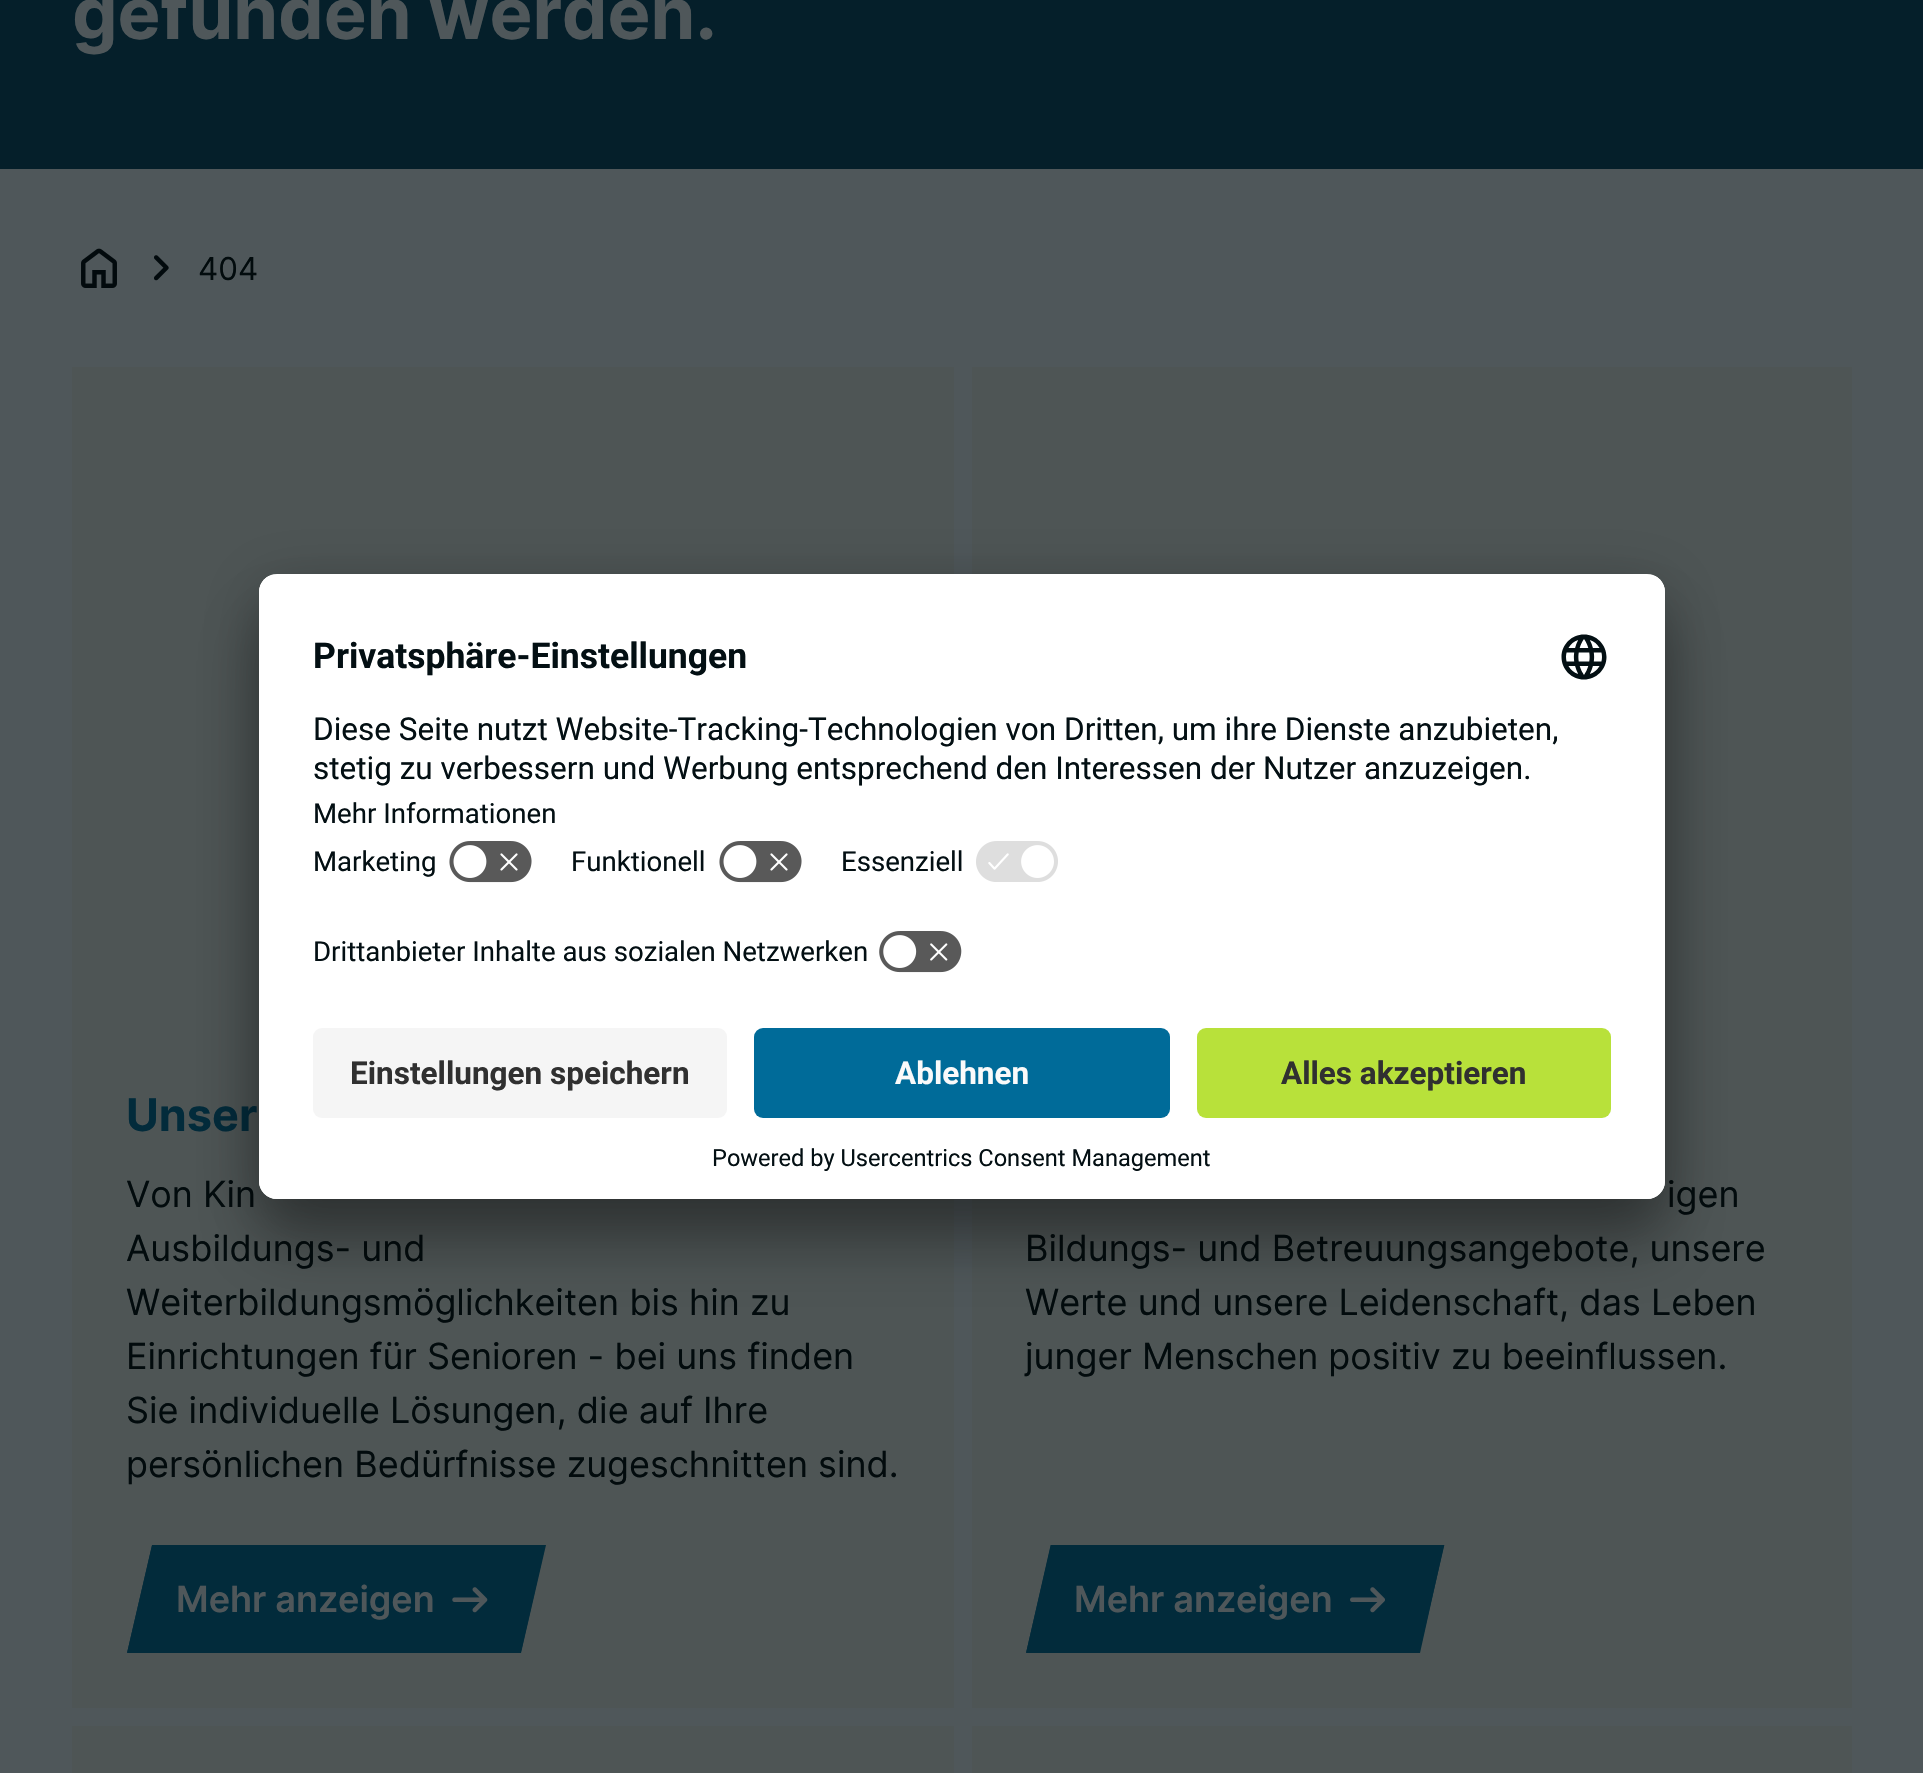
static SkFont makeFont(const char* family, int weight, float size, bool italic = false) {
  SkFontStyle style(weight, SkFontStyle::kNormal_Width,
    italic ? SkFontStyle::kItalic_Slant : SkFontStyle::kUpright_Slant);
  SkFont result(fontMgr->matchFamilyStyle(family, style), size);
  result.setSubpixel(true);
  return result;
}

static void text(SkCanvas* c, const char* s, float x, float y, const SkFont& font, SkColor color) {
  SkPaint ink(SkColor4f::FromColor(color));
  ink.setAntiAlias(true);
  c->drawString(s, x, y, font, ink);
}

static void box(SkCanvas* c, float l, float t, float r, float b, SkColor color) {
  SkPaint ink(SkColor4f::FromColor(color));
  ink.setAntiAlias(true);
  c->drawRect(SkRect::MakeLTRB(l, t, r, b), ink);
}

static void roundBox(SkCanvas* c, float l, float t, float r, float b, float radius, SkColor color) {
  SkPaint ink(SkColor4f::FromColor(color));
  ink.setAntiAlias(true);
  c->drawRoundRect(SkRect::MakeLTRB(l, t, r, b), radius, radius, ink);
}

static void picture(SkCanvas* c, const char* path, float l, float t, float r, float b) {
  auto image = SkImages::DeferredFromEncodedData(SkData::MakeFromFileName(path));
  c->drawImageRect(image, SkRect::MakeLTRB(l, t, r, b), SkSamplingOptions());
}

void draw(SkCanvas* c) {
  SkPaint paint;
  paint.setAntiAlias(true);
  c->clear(0xff4f575a);
  box(c, 0, 0, 1923, 169, 0xff051f2a);
  SkFont face1 = makeFont("Inter", 700, 72);
  text(c, "gefunden werden.", 72, 39, face1, 0xff4f575a);
  picture(c, "img_01.png", 81, 248, 117, 288);
  picture(c, "img_02.png", 154, 255, 169, 281);
  SkFont face2 = makeFont("Inter", 400, 31.5f);
  text(c, "404", 198, 280, face2, 0xff020b0d);
  box(c, 72, 367, 954, 1708, 0xff4e5555);
  SkFont face3 = makeFont("Inter", 700, 45);
  text(c, "Unser", 126, 1131, face3, 0xff022b3b);
  SkFont face4 = makeFont("Inter", 400, 36);
  text(c, "Von Kin", 126, 1207, face4, 0xff020b0d);
  text(c, "Ausbildungs- und", 126, 1261, face4, 0xff020b0d);
  text(c, "Weiterbildungsmöglichkeiten bis hin zu", 126, 1315, face4, 0xff020b0d);
  text(c, "Einrichtungen für Senioren - bei uns finden", 126, 1369, face4, 0xff020b0d);
  text(c, "Sie individuelle Lösungen, die auf Ihre", 126, 1423, face4, 0xff020b0d);
  text(c, "persönlichen Bedürfnisse zugeschnitten sind.", 126, 1477, face4, 0xff020b0d);
  paint.setColor(0xff022b3b);
  c->drawPath(SkPathBuilder().moveTo(152, 1545).lineTo(546, 1545).lineTo(521, 1653).lineTo(127, 1653).close().detach(), paint);
  paint.setStyle(SkPaint::kStroke_Style);
  paint.setStrokeWidth(2.2f);
  c->drawPath(SkPathBuilder().moveTo(153, 1546).lineTo(544, 1546).lineTo(520, 1651.5f).lineTo(128.5f, 1651.5f).close().detach(), paint);
  SkFont face5 = makeFont("Inter", 600, 36);
  text(c, "Mehr anzeigen", 176, 1612, face5, 0xff4f575a);
  picture(c, "img_03.png", 452, 1587, 488, 1613);
  box(c, 972, 367, 1852, 1708, 0xff4e5555);
  text(c, "igen", 1667, 1207, face4, 0xff020b0d);
  text(c, "Bildungs- und Betreuungsangebote, unsere", 1025, 1261, face4, 0xff020b0d);
  text(c, "Werte und unsere Leidenschaft, das Leben", 1025, 1315, face4, 0xff020b0d);
  text(c, "junger Menschen positiv zu beeinflussen.", 1025, 1369, face4, 0xff020b0d);
  paint.setStyle(SkPaint::kFill_Style);
  c->drawPath(SkPathBuilder().moveTo(1051, 1545).lineTo(1444, 1545).lineTo(1420, 1653).lineTo(1026, 1653).close().detach(), paint);
  paint.setStyle(SkPaint::kStroke_Style);
  c->drawPath(SkPathBuilder().moveTo(1051.5f, 1546).lineTo(1443, 1546).lineTo(1418.5f, 1651.5f).lineTo(1027.5f, 1651.5f).close().detach(), paint);
  text(c, "Mehr anzeigen", 1074, 1612, face5, 0xff4f575a);
  picture(c, "img_04.png", 1350, 1587, 1385, 1613);
  box(c, 72, 1726, 954, 1773, 0xff4e5555);
  box(c, 972, 1726, 1852, 1773, 0xff4e5555);
  paint.setStyle(SkPaint::kFill_Style);
  paint.setColor(0x4d000000);
  paint.setMaskFilter(SkMaskFilter::MakeBlur(kNormal_SkBlurStyle, 31.5f));
  c->drawRoundRect(SkRect::MakeLTRB(259, 619, 1665, 1244), 18, 18, paint);
  paint.setMaskFilter(nullptr);
  paint.setColor(0x38000000);
  paint.setMaskFilter(SkMaskFilter::MakeBlur(kNormal_SkBlurStyle, 29));
  c->drawRoundRect(SkRect::MakeLTRB(259, 585, 1665, 1211), 18, 18, paint);
  paint.setMaskFilter(nullptr);
  roundBox(c, 259, 574, 1665, 1199, 18, 0xffffffff);
  c->save();
  c->clipPath(SkPathBuilder().moveTo(277, 574).lineTo(1647, 574).cubicTo(1657, 574, 1665, 582, 1665, 592).lineTo(1665, 1181).cubicTo(1665, 1191, 1657, 1199, 1647, 1199).lineTo(277, 1199).cubicTo(267, 1199, 259, 1191, 259, 1181).lineTo(259, 592).cubicTo(259, 582, 267, 574, 277, 574).close().detach(), true);
  c->clipPath(SkPathBuilder().moveTo(277, 574).lineTo(1647, 574).cubicTo(1657, 574, 1665, 582, 1665, 592).lineTo(1665, 1010).lineTo(259, 1010).lineTo(259, 592).cubicTo(259, 582, 267, 574, 277, 574).close().detach(), true);
  box(c, 259, 576, 1665, 1010, 0xffffffff);
  box(c, 259, 576, 1665, 830, 0xffffffff);
  c->restore();
  SkFont face6 = makeFont("Roboto", 700, 35.5f);
  text(c, "Privatsphäre-Einstellungen", 313, 668, face6, 0xff030f13);
  picture(c, "img_05.png", 1561, 634, 1607, 680);
  SkFont face7 = makeFont("Roboto", 400, 31.5f);
  text(c, "Diese Seite nutzt Website-Tracking-Technologien von Dritten, um ihre Dienste anzubieten,", 313, 740, face7, 0xff030f13);
  text(c, "stetig zu verbessern und Werbung entsprechend den Interessen der Nutzer anzuzeigen.", 313, 779, face7, 0xff030f13);
  SkFont face8 = makeFont("Roboto", 400, 27.6f);
  text(c, "Mehr Informationen", 313, 823, face8, 0xff030f13);
  text(c, "Marketing", 313, 871, face8, 0xff030f13);
  picture(c, "img_06.png", 449, 841, 532, 883);
  text(c, "Funktionell", 571, 871, face8, 0xff030f13);
  picture(c, "img_06.png", 719, 841, 802, 883);
  text(c, "Essenziell", 841, 871, face8, 0xff030f13);
  picture(c, "img_07.png", 976, 841, 1058, 882);
  text(c, "Drittanbieter Inhalte aus sozialen Netzwerken", 313, 961, face8, 0xff030f13);
  picture(c, "img_08.png", 879, 931, 962, 973);
  paint.setColor(0xffffffff);
  c->drawPath(SkPathBuilder().moveTo(259, 1010).lineTo(1665, 1010).lineTo(1665, 1181).cubicTo(1665, 1191, 1657, 1199, 1647, 1199).lineTo(277, 1199).cubicTo(267, 1199, 259, 1191, 259, 1181).close().detach(), paint);
  roundBox(c, 313, 1028, 727, 1118, 9, 0xfff5f5f5);
  SkFont face9 = makeFont("Roboto", 700, 31.5f);
  text(c, "Einstellungen speichern", 350, 1084, face9, 0xff303030);
  roundBox(c, 754, 1028, 1170, 1118, 9, 0xff006b99);
  text(c, "Ablehnen", 895, 1084, face9, 0xfffafafa);
  roundBox(c, 1197, 1028, 1611, 1118, 9, 0xffb8e13a);
  text(c, "Alles akzeptieren", 1281, 1084, face9, 0xff303030);
  SkFont face10 = makeFont("Roboto", 400, 23.6f);
  text(c, "Powered by Usercentrics Consent Management", 712, 1166, face10, 0xff030f13);
}
